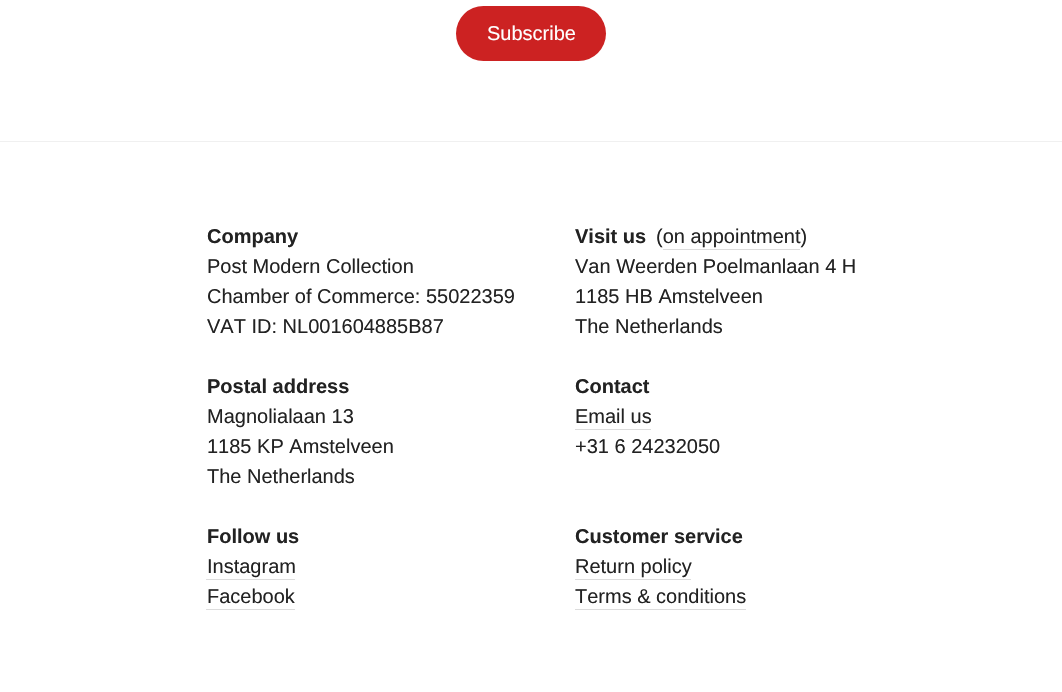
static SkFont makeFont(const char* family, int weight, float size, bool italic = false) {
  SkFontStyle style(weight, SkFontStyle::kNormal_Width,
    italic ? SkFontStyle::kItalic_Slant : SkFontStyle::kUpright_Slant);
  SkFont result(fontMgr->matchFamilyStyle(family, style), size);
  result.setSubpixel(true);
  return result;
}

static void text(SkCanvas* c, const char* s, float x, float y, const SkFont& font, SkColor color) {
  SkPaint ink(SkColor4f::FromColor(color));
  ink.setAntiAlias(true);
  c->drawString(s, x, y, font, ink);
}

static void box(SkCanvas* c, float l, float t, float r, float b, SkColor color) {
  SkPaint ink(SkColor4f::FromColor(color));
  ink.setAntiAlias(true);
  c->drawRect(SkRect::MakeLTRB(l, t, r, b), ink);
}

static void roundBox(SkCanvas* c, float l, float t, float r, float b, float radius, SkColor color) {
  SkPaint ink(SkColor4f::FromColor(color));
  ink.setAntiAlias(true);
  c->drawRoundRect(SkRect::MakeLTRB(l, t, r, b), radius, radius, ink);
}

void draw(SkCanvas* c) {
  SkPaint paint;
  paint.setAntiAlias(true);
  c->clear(0xffffffff);
  roundBox(c, 456, 6, 606, 61, 27.5f, 0xffcc2222);
  SkFont face1 = makeFont("Liberation Sans", 400, 20);
  text(c, "Subscribe", 487, 40, face1, 0xffffffff);
  box(c, 0, 141, 1062, 142, 0xfff0f0f0);
  SkFont face2 = makeFont("Liberation Sans", 700, 20);
  text(c, "Company", 207, 243, face2, 0xff222222);
  text(c, "Post Modern Collection", 207, 273, face1, 0xff222222);
  text(c, "Chamber of Commerce: 55022359", 207, 303, face1, 0xff222222);
  text(c, "VAT ID: NL001604885B87", 207, 333, face1, 0xff222222);
  text(c, "Visit us", 575, 243, face2, 0xff222222);
  text(c, "(on appointment)", 656, 243, face1, 0xff222222);
  box(c, 663, 249, 800, 250, 0xffdcdcdc);
  text(c, "Van Weerden Poelmanlaan 4 H", 575, 273, face1, 0xff222222);
  text(c, "1185 HB Amstelveen", 575, 303, face1, 0xff222222);
  text(c, "The Netherlands", 575, 333, face1, 0xff222222);
  text(c, "Postal address", 207, 393, face2, 0xff222222);
  text(c, "Magnolialaan 13", 207, 423, face1, 0xff222222);
  text(c, "1185 KP Amstelveen", 207, 453, face1, 0xff222222);
  text(c, "The Netherlands", 207, 483, face1, 0xff222222);
  text(c, "Contact", 575, 393, face2, 0xff222222);
  text(c, "Email us", 575, 423, face1, 0xff222222);
  box(c, 575, 429, 651, 430, 0xffdcdcdc);
  text(c, "+31 6 24232050", 575, 453, face1, 0xff222222);
  text(c, "Follow us", 207, 543, face2, 0xff222222);
  text(c, "Instagram", 207, 573, face1, 0xff222222);
  box(c, 206, 579, 295, 580, 0xffdcdcdc);
  text(c, "Facebook", 207, 603, face1, 0xff222222);
  box(c, 206, 609, 295, 610, 0xffdcdcdc);
  text(c, "Customer service", 575, 543, face2, 0xff222222);
  text(c, "Return policy", 575, 573, face1, 0xff222222);
  box(c, 575, 579, 691, 580, 0xffdcdcdc);
  text(c, "Terms & conditions", 575, 603, face1, 0xff222222);
  box(c, 575, 609, 746, 610, 0xffdcdcdc);
}
